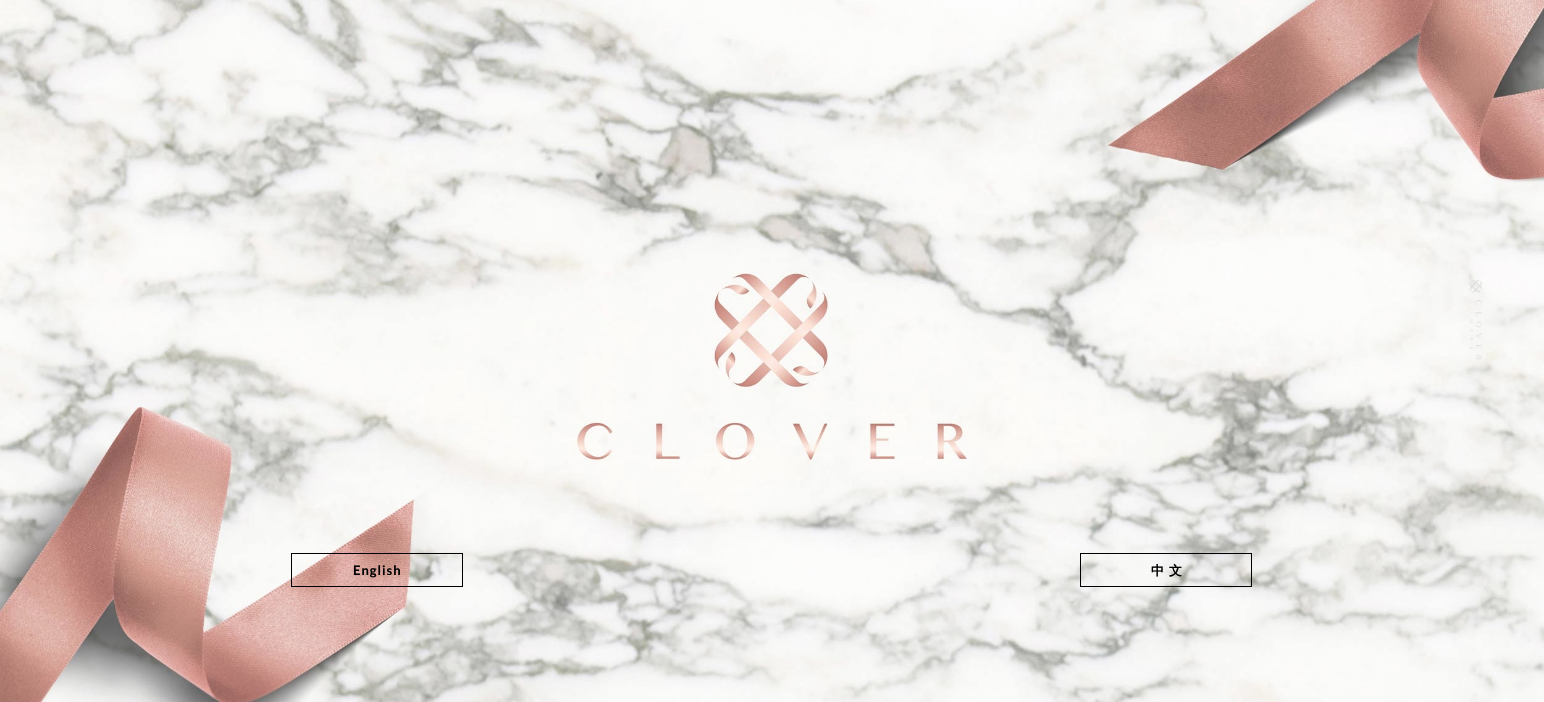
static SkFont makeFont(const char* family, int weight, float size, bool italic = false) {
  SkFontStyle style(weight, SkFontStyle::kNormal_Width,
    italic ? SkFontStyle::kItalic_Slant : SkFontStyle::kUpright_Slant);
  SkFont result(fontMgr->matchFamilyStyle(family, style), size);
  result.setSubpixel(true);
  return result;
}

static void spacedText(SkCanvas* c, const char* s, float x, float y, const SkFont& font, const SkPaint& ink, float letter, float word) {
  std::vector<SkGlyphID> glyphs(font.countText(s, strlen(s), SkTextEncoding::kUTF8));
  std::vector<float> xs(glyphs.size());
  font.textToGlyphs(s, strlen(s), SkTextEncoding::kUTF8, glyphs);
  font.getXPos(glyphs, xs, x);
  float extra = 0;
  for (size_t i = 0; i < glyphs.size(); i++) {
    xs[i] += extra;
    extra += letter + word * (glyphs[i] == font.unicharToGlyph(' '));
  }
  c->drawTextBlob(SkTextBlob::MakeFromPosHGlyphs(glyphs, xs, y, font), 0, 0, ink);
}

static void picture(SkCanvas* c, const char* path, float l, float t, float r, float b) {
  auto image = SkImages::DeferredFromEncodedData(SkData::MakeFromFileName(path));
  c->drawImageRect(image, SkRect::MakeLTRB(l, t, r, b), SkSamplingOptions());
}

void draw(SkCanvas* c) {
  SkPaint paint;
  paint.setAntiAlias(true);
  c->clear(0xffffffff);
  picture(c, "img_01.png", 0, 0, 1544, 702);
  paint.setStyle(SkPaint::kStroke_Style);
  paint.setStrokeWidth(1);
  paint.setColor(0xff000000);
  c->drawRect(SkRect::MakeLTRB(291.5f, 553.5f, 462.5f, 586.5f), paint);
  SkFont face1 = makeFont("Lato", 700, 13);
  paint.setStyle(SkPaint::kFill_Style);
  spacedText(c, "English", 353, 575, face1, paint, 1, 0);
  paint.setStyle(SkPaint::kStroke_Style);
  c->drawRect(SkRect::MakeLTRB(1080.5f, 553.5f, 1251.5f, 586.5f), paint);
  SkFont face2 = makeFont("WenQuanYi Zen Hei", 700, 13);
  paint.setStyle(SkPaint::kFill_Style);
  spacedText(c, "中 文", 1151, 575, face2, paint, 1, -1);
}
